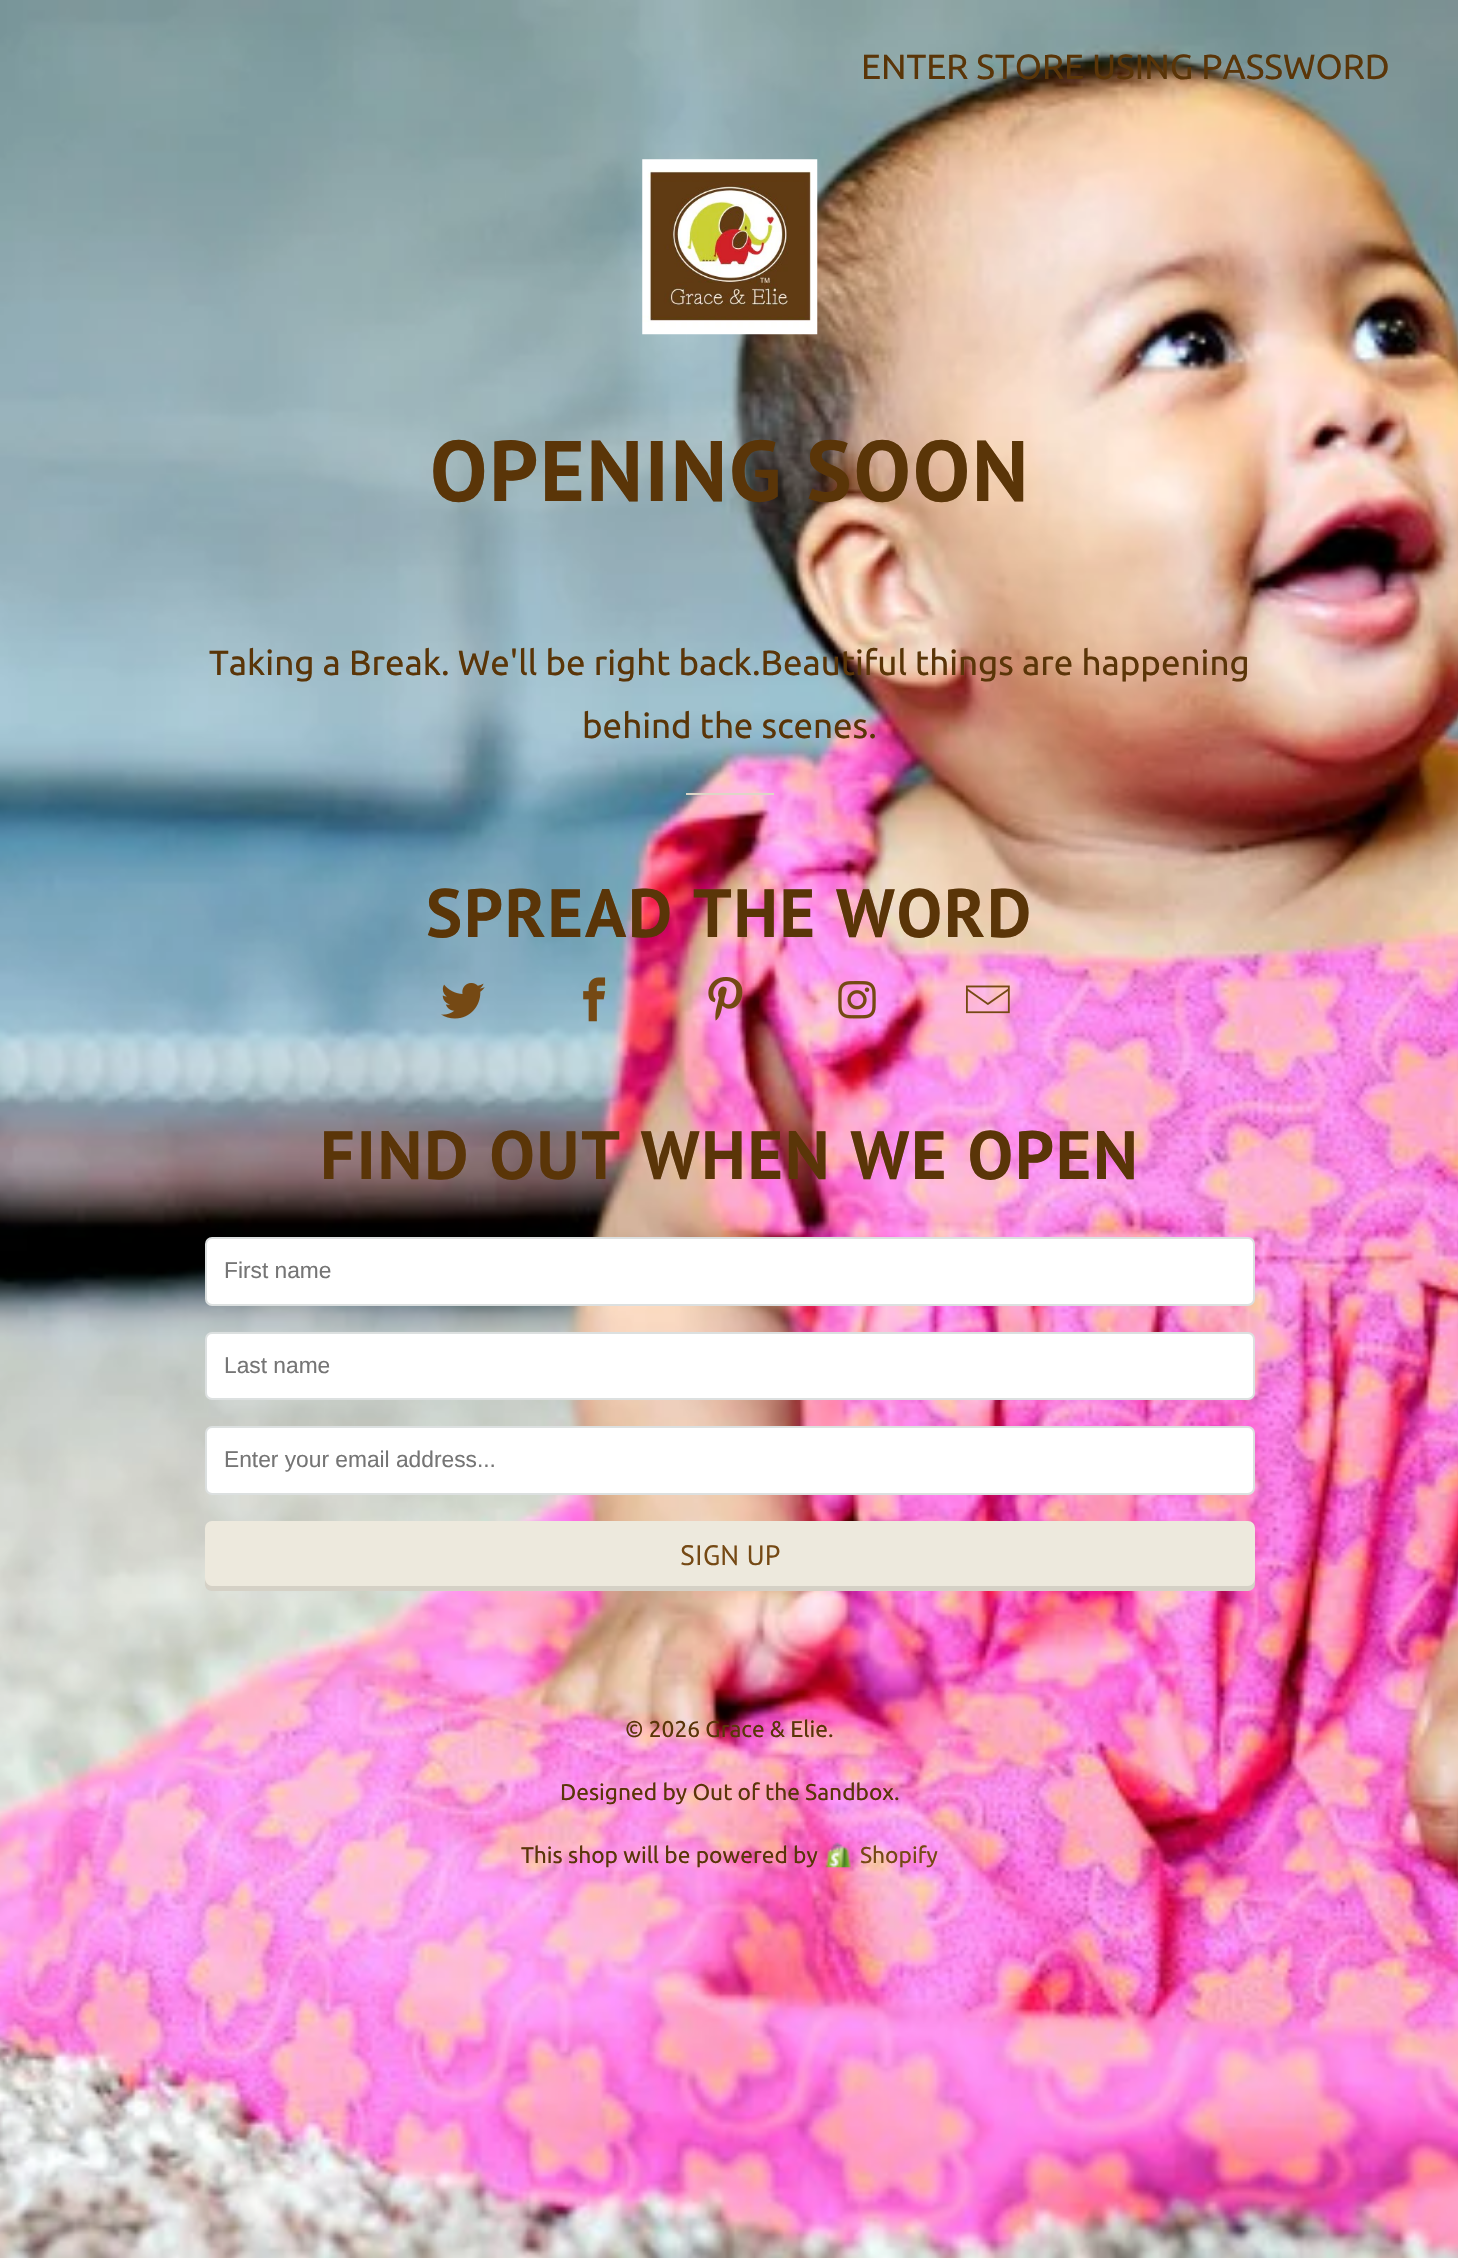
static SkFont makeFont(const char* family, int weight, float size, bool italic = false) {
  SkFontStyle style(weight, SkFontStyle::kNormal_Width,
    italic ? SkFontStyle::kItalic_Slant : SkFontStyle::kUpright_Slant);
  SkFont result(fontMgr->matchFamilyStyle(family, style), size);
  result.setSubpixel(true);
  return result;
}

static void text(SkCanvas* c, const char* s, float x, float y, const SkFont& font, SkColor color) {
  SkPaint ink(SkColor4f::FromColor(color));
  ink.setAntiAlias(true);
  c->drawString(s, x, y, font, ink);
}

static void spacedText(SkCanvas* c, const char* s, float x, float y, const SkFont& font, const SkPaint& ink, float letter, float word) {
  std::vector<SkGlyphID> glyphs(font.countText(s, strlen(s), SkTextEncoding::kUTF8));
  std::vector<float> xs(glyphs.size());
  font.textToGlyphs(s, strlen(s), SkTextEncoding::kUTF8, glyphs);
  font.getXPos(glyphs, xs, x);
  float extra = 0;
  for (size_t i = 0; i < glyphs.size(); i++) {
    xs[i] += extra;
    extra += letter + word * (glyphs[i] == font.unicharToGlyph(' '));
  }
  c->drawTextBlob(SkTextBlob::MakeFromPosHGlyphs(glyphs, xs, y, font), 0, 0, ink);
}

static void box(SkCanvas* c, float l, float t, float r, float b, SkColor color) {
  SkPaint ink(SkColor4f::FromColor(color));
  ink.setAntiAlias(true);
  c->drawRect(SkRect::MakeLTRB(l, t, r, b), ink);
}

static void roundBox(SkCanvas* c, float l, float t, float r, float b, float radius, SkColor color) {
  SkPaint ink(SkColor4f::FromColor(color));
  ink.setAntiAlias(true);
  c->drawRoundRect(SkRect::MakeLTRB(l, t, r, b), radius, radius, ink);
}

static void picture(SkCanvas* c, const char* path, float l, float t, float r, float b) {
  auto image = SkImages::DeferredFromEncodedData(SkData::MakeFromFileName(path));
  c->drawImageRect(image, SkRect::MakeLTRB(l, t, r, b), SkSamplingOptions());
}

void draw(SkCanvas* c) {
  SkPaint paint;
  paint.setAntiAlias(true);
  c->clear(0xffffffff);
  picture(c, "img_01.png", 0, 0, 1458, 2258);
  SkFont face1 = makeFont("Ubuntu", 400, 35);
  text(c, "ENTER STORE USING PASSWORD", 861, 79, face1, 0xff5a3508);
  picture(c, "img_02.png", 642, 159, 818, 335);
  SkFont face2 = makeFont("PT Sans", 700, 85.75f);
  paint.setColor(0xff5a3508);
  spacedText(c, "OPENING SOON", 430, 501, face2, paint, 1.75f, 0);
  text(c, "Taking a Break. We'll be right back.Beautiful things are happening", 209, 675, face1, 0xff5a3508);
  text(c, "behind the scenes.", 582, 738, face1, 0xff5a3508);
  box(c, 686, 793, 774, 795, 0xffded6c7);
  SkFont face3 = makeFont("PT Sans", 700, 68.25f);
  spacedText(c, "SPREAD THE WORD", 426, 937, face3, paint, 1.75f, 0);
  picture(c, "img_03.png", 441, 983, 485, 1019);
  picture(c, "img_04.png", 583, 977, 606, 1022);
  picture(c, "img_05.png", 708, 977, 743, 1021);
  picture(c, "img_06.png", 838, 981, 876, 1019);
  picture(c, "img_07.png", 966, 985, 1010, 1014);
  spacedText(c, "FIND OUT WHEN WE OPEN", 320, 1179, face3, paint, 1.75f, 0);
  paint.setColor(0xffffffff);
  c->drawRoundRect(SkRect::MakeLTRB(206, 1238, 1254, 1305), 6, 6, paint);
  paint.setStyle(SkPaint::kStroke_Style);
  paint.setStrokeWidth(2);
  paint.setColor(0xffdce0e0);
  c->drawRoundRect(SkRect::MakeLTRB(206, 1238, 1254, 1305), 6, 6, paint);
  SkFont face4 = makeFont("Liberation Sans", 400, 22.75f);
  text(c, "First name", 224, 1278, face4, 0xff757575);
  paint.setStyle(SkPaint::kFill_Style);
  paint.setColor(0xffffffff);
  c->drawRoundRect(SkRect::MakeLTRB(206, 1333, 1254, 1399), 6, 6, paint);
  paint.setStyle(SkPaint::kStroke_Style);
  paint.setColor(0xffdce0e0);
  c->drawRoundRect(SkRect::MakeLTRB(206, 1333, 1254, 1399), 6, 6, paint);
  text(c, "Last name", 224, 1373, face4, 0xff757575);
  paint.setStyle(SkPaint::kFill_Style);
  paint.setColor(0xffffffff);
  c->drawRoundRect(SkRect::MakeLTRB(206, 1427, 1254, 1494), 6, 6, paint);
  paint.setStyle(SkPaint::kStroke_Style);
  paint.setColor(0xffdce0e0);
  c->drawRoundRect(SkRect::MakeLTRB(206, 1427, 1254, 1494), 6, 6, paint);
  text(c, "Enter your email address...", 224, 1467, face4, 0xff757575);
  roundBox(c, 205, 1521, 1255, 1591, 7, 0xffede9dd);
  paint.setStyle(SkPaint::kFill_Style);
  paint.setColor(0x1a000000);
  c->drawPath(SkPathBuilder().moveTo(205, 1578).lineTo(205, 1584).cubicTo(205, 1588, 208, 1591, 212, 1591).lineTo(1248, 1591).cubicTo(1252, 1591, 1255, 1588, 1255, 1584).lineTo(1255, 1578).cubicTo(1255, 1582, 1252, 1586, 1248, 1586).lineTo(212, 1586).cubicTo(208, 1586, 205, 1582, 205, 1578).close().detach(), paint);
  SkFont face5 = makeFont("PT Sans", 400, 28);
  text(c, "SIGN UP", 680, 1565, face5, 0xff754914);
  SkFont face6 = makeFont("Ubuntu", 400, 22.75f);
  text(c, "© 2026 Grace & Elie.", 625, 1737, face6, 0xff5a3508);
  text(c, "Designed by Out of the Sandbox.", 560, 1800, face6, 0xff5a3508);
  text(c, "This shop will be powered by", 521, 1863, face6, 0xff5a3508);
  picture(c, "img_08.png", 825, 1842, 851, 1868);
  text(c, "Shopify", 860, 1863, face6, 0xff754914);
}
